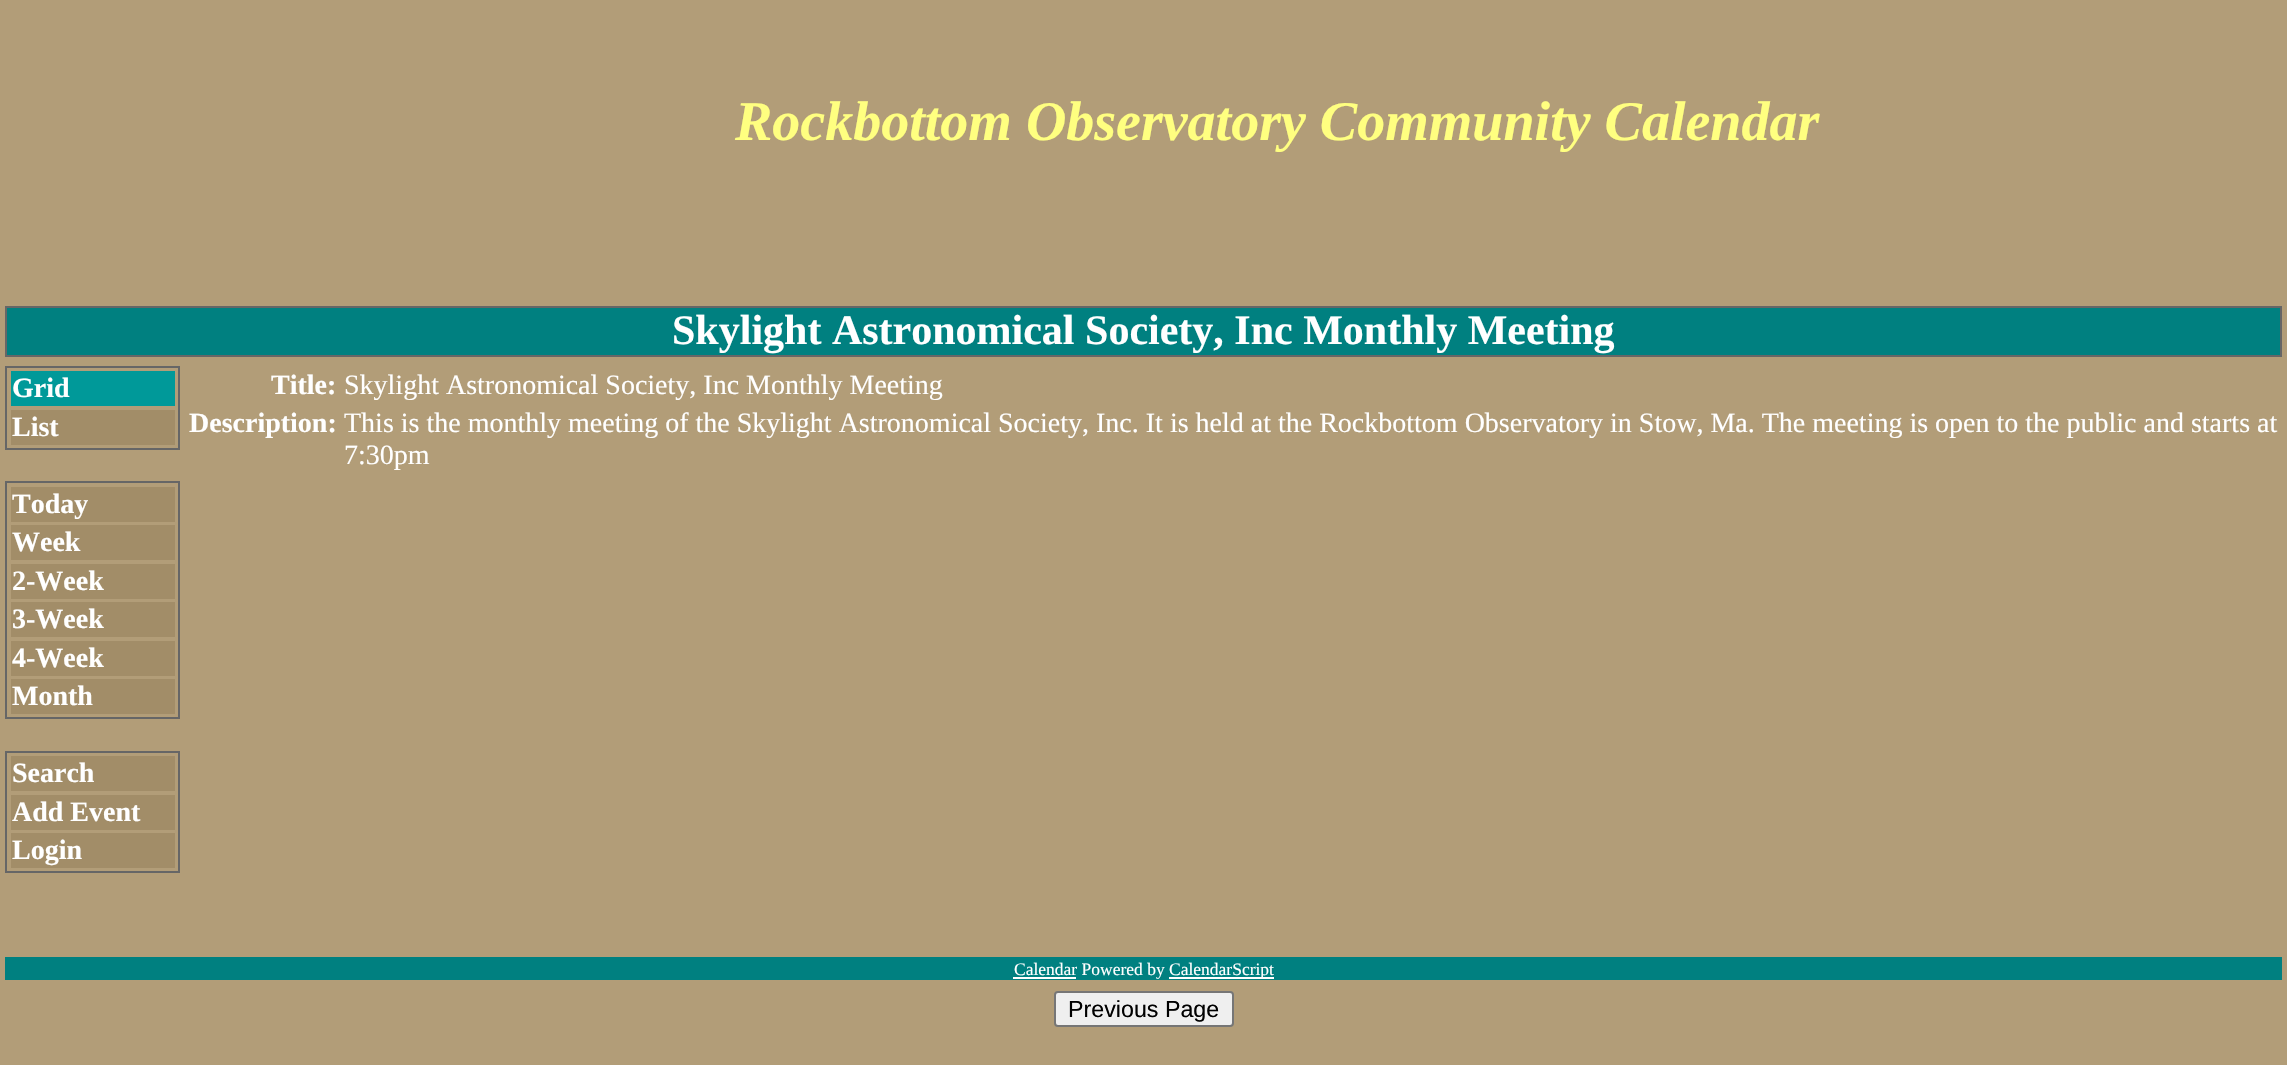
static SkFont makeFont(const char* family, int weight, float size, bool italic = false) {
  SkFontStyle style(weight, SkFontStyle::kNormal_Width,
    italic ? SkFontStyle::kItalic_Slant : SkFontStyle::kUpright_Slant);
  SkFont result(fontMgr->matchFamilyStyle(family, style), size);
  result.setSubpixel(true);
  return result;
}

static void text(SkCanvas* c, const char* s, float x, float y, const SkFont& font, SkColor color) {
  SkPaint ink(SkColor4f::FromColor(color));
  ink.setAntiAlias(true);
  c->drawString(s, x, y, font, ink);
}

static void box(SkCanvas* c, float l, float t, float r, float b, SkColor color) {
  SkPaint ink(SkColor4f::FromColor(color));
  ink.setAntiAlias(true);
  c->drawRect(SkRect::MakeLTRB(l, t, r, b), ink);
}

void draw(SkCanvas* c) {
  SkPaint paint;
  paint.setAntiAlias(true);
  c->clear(0xffb29d78);
  SkFont face1 = makeFont("Liberation Serif", 700, 56, true);
  text(c, "Rockbottom Observatory Community Calendar", 735, 140, face1, 0xffffff80);
  paint.setStyle(SkPaint::kStroke_Style);
  paint.setStrokeWidth(2);
  paint.setColor(0xff666666);
  c->drawRect(SkRect::MakeLTRB(6, 307, 2281, 356), paint);
  box(c, 7, 308, 2280, 355, 0xff008080);
  SkFont face2 = makeFont("Liberation Serif", 700, 42);
  text(c, "Skylight Astronomical Society, Inc Monthly Meeting", 672, 344, face2, 0xffffffff);
  c->drawRect(SkRect::MakeLTRB(6, 367, 179, 449), paint);
  box(c, 11, 371, 175, 406, 0xff009999);
  SkFont face3 = makeFont("Liberation Serif", 700, 28);
  text(c, "Grid", 12, 397, face3, 0xffffffff);
  box(c, 11, 410, 175, 445, 0xffa28d68);
  text(c, "List", 12, 436, face3, 0xffffffff);
  c->drawRect(SkRect::MakeLTRB(6, 482, 179, 718), paint);
  box(c, 11, 487, 175, 522, 0xffa28d68);
  text(c, "Today", 12, 513, face3, 0xffffffff);
  box(c, 11, 525, 175, 560, 0xffa28d68);
  text(c, "Week", 12, 551, face3, 0xffffffff);
  box(c, 11, 564, 175, 599, 0xffa28d68);
  text(c, "2-Week", 12, 590, face3, 0xffffffff);
  box(c, 11, 602, 175, 637, 0xffa28d68);
  text(c, "3-Week", 12, 628, face3, 0xffffffff);
  box(c, 11, 641, 175, 676, 0xffa28d68);
  text(c, "4-Week", 12, 667, face3, 0xffffffff);
  box(c, 11, 679, 175, 714, 0xffa28d68);
  text(c, "Month", 12, 705, face3, 0xffffffff);
  c->drawRect(SkRect::MakeLTRB(6, 752, 179, 872), paint);
  box(c, 11, 756, 175, 791, 0xffa28d68);
  text(c, "Search", 12, 782, face3, 0xffffffff);
  box(c, 11, 795, 175, 830, 0xffa28d68);
  text(c, "Add Event", 12, 821, face3, 0xffffffff);
  box(c, 11, 833, 175, 868, 0xffa28d68);
  text(c, "Login", 12, 859, face3, 0xffffffff);
  text(c, "Title:", 271, 394, face3, 0xffffffff);
  SkFont face4 = makeFont("Liberation Serif", 400, 28);
  text(c, "Skylight Astronomical Society, Inc Monthly Meeting", 344, 394, face4, 0xffffffff);
  text(c, "Description:", 189, 432, face3, 0xffffffff);
  text(c, "This is the monthly meeting of the Skylight Astronomical Society, Inc. It is held at the Rockbottom Observatory in Stow, Ma. The meeting is open to the public and starts at", 344, 432, face4, 0xffffffff);
  text(c, "7:30pm", 344, 464, face4, 0xffffffff);
  box(c, 5, 957, 2282, 980, 0xff008080);
  box(c, 1013, 977, 1076, 979, 0xffffffff);
  SkFont face5 = makeFont("Liberation Serif", 400, 17.5f);
  text(c, "Calendar Powered by", 1014, 975, face5, 0xffffffff);
  box(c, 1169, 977, 1274, 979, 0xffffffff);
  text(c, "CalendarScript", 1169, 975, face5, 0xffffffff);
  paint.setStyle(SkPaint::kFill_Style);
  paint.setColor(0xffefefef);
  c->drawRoundRect(SkRect::MakeLTRB(1055, 992, 1233, 1026), 3, 3, paint);
  paint.setStyle(SkPaint::kStroke_Style);
  paint.setColor(0xff767676);
  c->drawRoundRect(SkRect::MakeLTRB(1055, 992, 1233, 1026), 3, 3, paint);
  SkFont face6 = makeFont("Liberation Sans", 400, 23.25f);
  text(c, "Previous Page", 1068, 1017, face6, 0xff000000);
}
